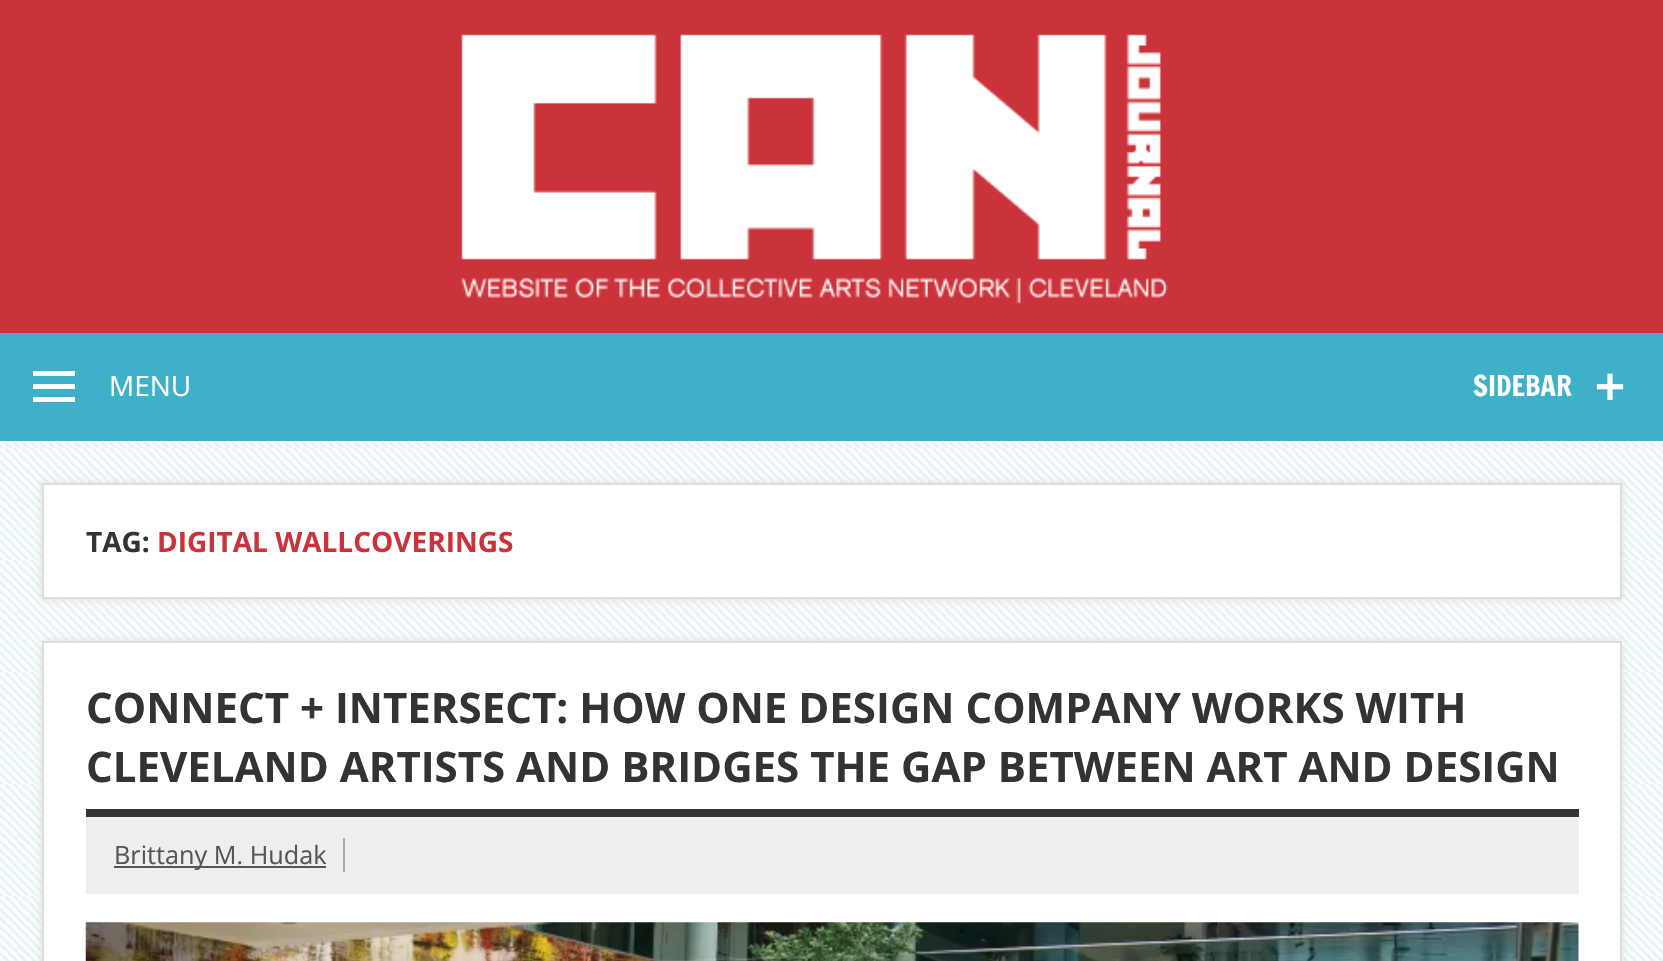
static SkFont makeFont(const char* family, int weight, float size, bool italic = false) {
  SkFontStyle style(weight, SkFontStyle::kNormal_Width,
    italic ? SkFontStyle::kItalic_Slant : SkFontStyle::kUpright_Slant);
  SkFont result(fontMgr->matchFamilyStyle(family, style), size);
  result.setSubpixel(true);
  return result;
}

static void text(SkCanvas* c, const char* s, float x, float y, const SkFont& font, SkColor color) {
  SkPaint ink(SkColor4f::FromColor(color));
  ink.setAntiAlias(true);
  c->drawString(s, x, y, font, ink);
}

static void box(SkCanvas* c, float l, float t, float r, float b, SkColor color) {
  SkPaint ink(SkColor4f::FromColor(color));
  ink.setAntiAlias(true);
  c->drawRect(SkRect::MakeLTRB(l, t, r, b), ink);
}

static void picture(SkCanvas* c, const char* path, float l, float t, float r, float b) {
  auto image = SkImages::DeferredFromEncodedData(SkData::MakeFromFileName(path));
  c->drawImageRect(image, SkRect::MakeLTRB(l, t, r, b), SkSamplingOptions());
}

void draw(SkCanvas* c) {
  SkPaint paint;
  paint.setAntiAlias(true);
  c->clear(0xffffffff);
  picture(c, "img_01.png", 0, 441, 1663, 961);
  box(c, 0, 0, 1663, 333, 0xffcb333b);
  picture(c, "img_02.png", 461, 34, 1168, 304);
  box(c, 0, 333, 1663, 441, 0xff3eb1c8);
  paint.setColor(0xffffffff);
  c->drawPath(SkPathBuilder().moveTo(33, 402).lineTo(33, 397).lineTo(75, 397).lineTo(75, 402).close().moveTo(33, 371).lineTo(75, 371).lineTo(75, 376).lineTo(33, 376).close().moveTo(33, 389).lineTo(33, 384).lineTo(75, 384).lineTo(75, 389).close().detach(), paint);
  SkFont face1 = makeFont("Open Sans", 400, 28);
  text(c, "MENU", 109, 396, face1, 0xffffffff);
  SkFont face2 = makeFont("Francois One", 400, 28);
  text(c, "SIDEBAR", 1473, 396, face2, 0xffffffff);
  picture(c, "img_03.png", 1596, 373, 1624, 400);
  paint.setColor(0xffdddddd);
  paint.setMaskFilter(SkMaskFilter::MakeBlur(kNormal_SkBlurStyle, 3.5f));
  c->drawRect(SkRect::MakeLTRB(42, 483, 1622, 599), paint);
  paint.setMaskFilter(nullptr);
  paint.setColor(0xffffffff);
  c->drawRect(SkRect::MakeLTRB(43, 484, 1621, 598), paint);
  paint.setStyle(SkPaint::kStroke_Style);
  paint.setStrokeWidth(2);
  paint.setColor(0xffdddddd);
  c->drawRect(SkRect::MakeLTRB(43, 484, 1621, 598), paint);
  SkFont face3 = makeFont("Open Sans", 700, 28);
  text(c, "TAG:", 86, 552, face3, 0xff333333);
  text(c, "DIGITAL WALLCOVERINGS", 157, 552, face3, 0xffcb333b);
  paint.setStyle(SkPaint::kFill_Style);
  paint.setMaskFilter(SkMaskFilter::MakeBlur(kNormal_SkBlurStyle, 3.5f));
  c->drawRect(SkRect::MakeLTRB(42, 641, 1622, 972), paint);
  paint.setMaskFilter(nullptr);
  paint.setColor(0xffffffff);
  c->drawRect(SkRect::MakeLTRB(43, 642, 1621, 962), paint);
  paint.setStyle(SkPaint::kStroke_Style);
  paint.setColor(0xffdddddd);
  c->drawRect(SkRect::MakeLTRB(43, 642, 1621, 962), paint);
  box(c, 86, 809, 1579, 817, 0xff333333);
  SkFont face4 = makeFont("Open Sans", 700, 42);
  text(c, "CONNECT + INTERSECT: HOW ONE DESIGN COMPANY WORKS WITH", 86, 723, face4, 0xff333333);
  text(c, "CLEVELAND ARTISTS AND BRIDGES THE GAP BETWEEN ART AND DESIGN", 86, 782, face4, 0xff333333);
  box(c, 86, 817, 1579, 894, 0xffeeeeee);
  box(c, 114, 866, 326, 868, 0xff555555);
  SkFont face5 = makeFont("Open Sans", 400, 25.25f);
  text(c, "Brittany M. Hudak", 114, 864, face5, 0xff555555);
  box(c, 343, 838, 345, 872, 0xffaaaaaa);
  picture(c, "img_04.png", 85, 922, 1579, 961);
}
